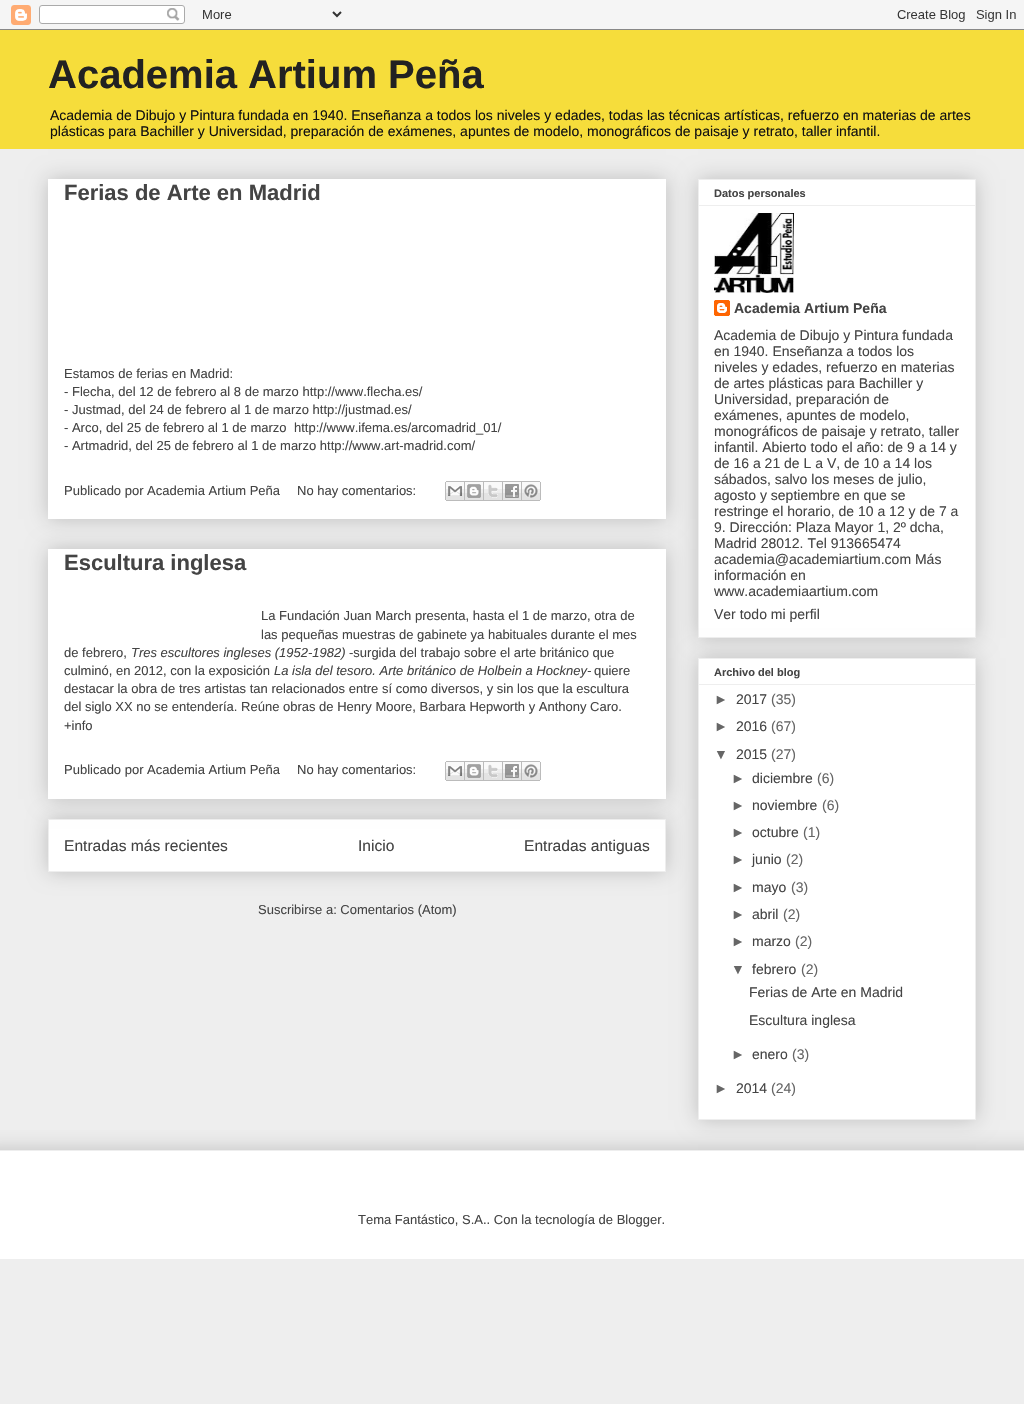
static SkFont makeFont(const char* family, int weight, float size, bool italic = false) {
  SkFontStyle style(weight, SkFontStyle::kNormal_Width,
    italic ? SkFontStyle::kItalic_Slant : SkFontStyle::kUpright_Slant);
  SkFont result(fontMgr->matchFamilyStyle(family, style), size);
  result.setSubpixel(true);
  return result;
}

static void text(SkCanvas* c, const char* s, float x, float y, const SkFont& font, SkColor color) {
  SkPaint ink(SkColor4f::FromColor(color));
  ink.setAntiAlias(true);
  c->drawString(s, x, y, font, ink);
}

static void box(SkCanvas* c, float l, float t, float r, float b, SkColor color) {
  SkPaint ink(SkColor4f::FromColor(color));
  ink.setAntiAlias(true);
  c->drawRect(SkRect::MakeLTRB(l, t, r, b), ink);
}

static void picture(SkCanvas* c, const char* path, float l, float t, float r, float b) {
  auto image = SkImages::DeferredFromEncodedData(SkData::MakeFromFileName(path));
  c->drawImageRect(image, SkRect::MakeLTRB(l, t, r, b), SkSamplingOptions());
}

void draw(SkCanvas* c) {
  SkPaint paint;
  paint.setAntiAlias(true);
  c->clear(0xffeeeeee);
  picture(c, "img_01.png", 0, 0, 1024, 30);
  box(c, 0, 30, 1024, 149, 0xfff6dd3b);
  SkFont face1 = makeFont("Liberation Sans", 700, 40);
  text(c, "Academia Artium Peña", 48, 88, face1, 0xff222222);
  SkFont face2 = makeFont("Liberation Sans", 400, 14);
  text(c, "Academia de Dibujo y Pintura fundada en 1940. Enseñanza a todos los niveles y edades, todas las técnicas artísticas, refuerzo en materias de artes", 50, 120, face2, 0xff111111);
  text(c, "plásticas para Bachiller y Universidad, preparación de exámenes, apuntes de modelo, monográficos de paisaje y retrato, taller infantil.", 50, 136, face2, 0xff111111);
  paint.setColor(0x33000000);
  paint.setMaskFilter(SkMaskFilter::MakeBlur(kNormal_SkBlurStyle, 10));
  c->drawRect(SkRect::MakeLTRB(48, 179, 666, 519), paint);
  paint.setMaskFilter(nullptr);
  box(c, 48, 179, 666, 519, 0xffffffff);
  SkFont face3 = makeFont("Liberation Sans", 700, 22);
  text(c, "Ferias de Arte en Madrid", 64, 200, face3, 0xff444444);
  SkFont face4 = makeFont("Liberation Sans", 400, 13);
  text(c, "Estamos de ferias en Madrid:", 64, 378, face4, 0xff444444);
  text(c, "- Flecha, del 12 de febrero al 8 de marzo http://www.flecha.es/", 64, 396, face4, 0xff444444);
  text(c, "- Justmad, del 24 de febrero al 1 de marzo http://justmad.es/", 64, 414, face4, 0xff444444);
  text(c, "- Arco, del 25 de febrero al 1 de marzo", 64, 432, face4, 0xff444444);
  text(c, "http://www.ifema.es/arcomadrid_01/", 294, 432, face4, 0xff444444);
  text(c, "- Artmadrid, del 25 de febrero al 1 de marzo http://www.art-madrid.com/", 64, 450, face4, 0xff444444);
  text(c, "Publicado por Academia Artium Peña", 64, 495, face4, 0xff444444);
  text(c, "No hay comentarios:", 297, 495, face4, 0xff444444);
  picture(c, "img_02.png", 445, 481, 465, 501);
  picture(c, "img_03.png", 465, 481, 484, 501);
  picture(c, "img_04.png", 484, 481, 503, 501);
  picture(c, "img_05.png", 503, 481, 522, 501);
  picture(c, "img_06.png", 522, 481, 541, 501);
  paint.setMaskFilter(SkMaskFilter::MakeBlur(kNormal_SkBlurStyle, 10));
  c->drawRect(SkRect::MakeLTRB(48, 819, 666, 872), paint);
  paint.setMaskFilter(nullptr);
  paint.setColor(0xffffffff);
  c->drawRect(SkRect::MakeLTRB(48.5f, 819.5f, 665.5f, 871.5f), paint);
  paint.setStyle(SkPaint::kStroke_Style);
  paint.setStrokeWidth(1);
  paint.setColor(0xffeeeeee);
  c->drawRect(SkRect::MakeLTRB(48.5f, 819.5f, 665.5f, 871.5f), paint);
  paint.setStyle(SkPaint::kFill_Style);
  paint.setColor(0x33000000);
  paint.setMaskFilter(SkMaskFilter::MakeBlur(kNormal_SkBlurStyle, 10));
  c->drawRect(SkRect::MakeLTRB(48, 549, 666, 799), paint);
  paint.setMaskFilter(nullptr);
  box(c, 48, 549, 666, 799, 0xffffffff);
  text(c, "Escultura inglesa", 64, 570, face3, 0xff444444);
  text(c, "La Fundación Juan March presenta, hasta el 1 de marzo, otra de", 261, 620, face4, 0xff444444);
  text(c, "las pequeñas muestras de gabinete ya habituales durante el mes", 261, 639, face4, 0xff444444);
  text(c, "de febrero,", 64, 657, face4, 0xff444444);
  SkFont face5 = makeFont("Liberation Sans", 400, 13, true);
  text(c, "Tres escultores ingleses (1952-1982)", 131, 657, face5, 0xff444444);
  text(c, "-surgida del trabajo sobre el arte británico que", 349, 657, face4, 0xff444444);
  text(c, "culminó, en 2012, con la exposición", 64, 675, face4, 0xff444444);
  text(c, "La isla del tesoro. Arte británico de Holbein a Hockney-", 274, 675, face5, 0xff444444);
  text(c, "quiere", 594, 675, face4, 0xff444444);
  text(c, "destacar la obra de tres artistas tan relacionados entre sí como diversos, y sin los que la escultura", 64, 693, face4, 0xff444444);
  text(c, "del siglo XX no se entendería. Reúne obras de Henry Moore, Barbara Hepworth y Anthony Caro.", 64, 711, face4, 0xff444444);
  text(c, "+info", 64, 730, face4, 0xff444444);
  text(c, "Publicado por Academia Artium Peña", 64, 774, face4, 0xff444444);
  text(c, "No hay comentarios:", 297, 774, face4, 0xff444444);
  picture(c, "img_02.png", 445, 761, 465, 781);
  picture(c, "img_03.png", 465, 761, 484, 781);
  picture(c, "img_04.png", 484, 761, 503, 781);
  picture(c, "img_05.png", 503, 761, 522, 781);
  picture(c, "img_06.png", 522, 761, 541, 781);
  SkFont face6 = makeFont("Liberation Sans", 400, 15.6f);
  text(c, "Entradas más recientes", 64, 851, face6, 0xff444444);
  text(c, "Inicio", 358, 851, face6, 0xff444444);
  text(c, "Entradas antiguas", 524, 851, face6, 0xff444444);
  text(c, "Suscribirse a: Comentarios (Atom)", 258, 914, face4, 0xff444444);
  paint.setMaskFilter(SkMaskFilter::MakeBlur(kNormal_SkBlurStyle, 10));
  c->drawRect(SkRect::MakeLTRB(698, 179, 976, 638), paint);
  paint.setMaskFilter(nullptr);
  paint.setColor(0xffffffff);
  c->drawRect(SkRect::MakeLTRB(698.5f, 179.5f, 975.5f, 637.5f), paint);
  paint.setStyle(SkPaint::kStroke_Style);
  paint.setColor(0xffeeeeee);
  c->drawRect(SkRect::MakeLTRB(698.5f, 179.5f, 975.5f, 637.5f), paint);
  SkFont face7 = makeFont("Liberation Sans", 700, 11);
  text(c, "Datos personales", 714, 197, face7, 0xff444444);
  box(c, 699, 205, 975, 206, 0xffeeeeee);
  picture(c, "img_07.png", 714, 213, 794, 293);
  picture(c, "img_08.png", 714, 300, 730, 316);
  SkFont face8 = makeFont("Liberation Sans", 700, 14);
  text(c, "Academia Artium Peña", 734, 313, face8, 0xff444444);
  text(c, "Academia de Dibujo y Pintura fundada", 714, 340, face2, 0xff444444);
  text(c, "en 1940. Enseñanza a todos los", 714, 356, face2, 0xff444444);
  text(c, "niveles y edades, refuerzo en materias", 714, 372, face2, 0xff444444);
  text(c, "de artes plásticas para Bachiller y", 714, 388, face2, 0xff444444);
  text(c, "Universidad, preparación de", 714, 404, face2, 0xff444444);
  text(c, "exámenes, apuntes de modelo,", 714, 420, face2, 0xff444444);
  text(c, "monográficos de paisaje y retrato, taller", 714, 436, face2, 0xff444444);
  text(c, "infantil. Abierto todo el año: de 9 a 14 y", 714, 452, face2, 0xff444444);
  text(c, "de 16 a 21 de L a V, de 10 a 14 los", 714, 468, face2, 0xff444444);
  text(c, "sábados, salvo los meses de julio,", 714, 484, face2, 0xff444444);
  text(c, "agosto y septiembre en que se", 714, 500, face2, 0xff444444);
  text(c, "restringe el horario, de 10 a 12 y de 7 a", 714, 516, face2, 0xff444444);
  text(c, "9. Dirección: Plaza Mayor 1, 2º dcha,", 714, 532, face2, 0xff444444);
  text(c, "Madrid 28012. Tel 913665474", 714, 548, face2, 0xff444444);
  text(c, "academia@academiartium.com Más", 714, 564, face2, 0xff444444);
  text(c, "información en", 714, 580, face2, 0xff444444);
  text(c, "www.academiaartium.com", 714, 596, face2, 0xff444444);
  text(c, "Ver todo mi perfil", 714, 619, face2, 0xff444444);
  paint.setStyle(SkPaint::kFill_Style);
  paint.setColor(0x33000000);
  paint.setMaskFilter(SkMaskFilter::MakeBlur(kNormal_SkBlurStyle, 10));
  c->drawRect(SkRect::MakeLTRB(698, 658, 976, 1120), paint);
  paint.setMaskFilter(nullptr);
  paint.setColor(0xffffffff);
  c->drawRect(SkRect::MakeLTRB(698.5f, 658.5f, 975.5f, 1119.5f), paint);
  paint.setStyle(SkPaint::kStroke_Style);
  paint.setColor(0xffeeeeee);
  c->drawRect(SkRect::MakeLTRB(698.5f, 658.5f, 975.5f, 1119.5f), paint);
  text(c, "Archivo del blog", 714, 676, face7, 0xff444444);
  box(c, 699, 684, 975, 685, 0xffeeeeee);
  text(c, "►", 714, 704, face2, 0xff666666);
  text(c, "2017", 736, 704, face2, 0xff444444);
  text(c, "(35)", 771, 704, face2, 0xff666666);
  text(c, "►", 714, 731, face2, 0xff666666);
  text(c, "2016", 736, 731, face2, 0xff444444);
  text(c, "(67)", 771, 731, face2, 0xff666666);
  text(c, "▼", 714, 759, face2, 0xff666666);
  text(c, "2015", 736, 759, face2, 0xff444444);
  text(c, "(27)", 771, 759, face2, 0xff666666);
  text(c, "►", 731, 783, face2, 0xff666666);
  text(c, "diciembre", 752, 783, face2, 0xff444444);
  text(c, "(6)", 817, 783, face2, 0xff666666);
  text(c, "►", 731, 810, face2, 0xff666666);
  text(c, "noviembre", 752, 810, face2, 0xff444444);
  text(c, "(6)", 822, 810, face2, 0xff666666);
  text(c, "►", 731, 837, face2, 0xff666666);
  text(c, "octubre", 752, 837, face2, 0xff444444);
  text(c, "(1)", 803, 837, face2, 0xff666666);
  text(c, "►", 731, 864, face2, 0xff666666);
  text(c, "junio", 752, 864, face2, 0xff444444);
  text(c, "(2)", 786, 864, face2, 0xff666666);
  text(c, "►", 731, 892, face2, 0xff666666);
  text(c, "mayo", 752, 892, face2, 0xff444444);
  text(c, "(3)", 791, 892, face2, 0xff666666);
  text(c, "►", 731, 919, face2, 0xff666666);
  text(c, "abril", 752, 919, face2, 0xff444444);
  text(c, "(2)", 783, 919, face2, 0xff666666);
  text(c, "►", 731, 946, face2, 0xff666666);
  text(c, "marzo", 752, 946, face2, 0xff444444);
  text(c, "(2)", 795, 946, face2, 0xff666666);
  text(c, "▼", 731, 974, face2, 0xff666666);
  text(c, "febrero", 752, 974, face2, 0xff444444);
  text(c, "(2)", 801, 974, face2, 0xff666666);
  text(c, "Ferias de Arte en Madrid", 749, 997, face2, 0xff444444);
  text(c, "Escultura inglesa", 749, 1025, face2, 0xff444444);
  text(c, "►", 731, 1059, face2, 0xff666666);
  text(c, "enero", 752, 1059, face2, 0xff444444);
  text(c, "(3)", 792, 1059, face2, 0xff666666);
  text(c, "►", 714, 1093, face2, 0xff666666);
  text(c, "2014", 736, 1093, face2, 0xff444444);
  text(c, "(24)", 771, 1093, face2, 0xff666666);
  c->save();
  c->clipRect(SkRect::MakeLTRB(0, 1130, 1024, 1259));
  paint.setStyle(SkPaint::kFill_Style);
  paint.setColor(0x33000000);
  paint.setMaskFilter(SkMaskFilter::MakeBlur(kNormal_SkBlurStyle, 10));
  c->drawRect(SkRect::MakeLTRB(-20, 1150, 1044, 1259), paint);
  paint.setMaskFilter(nullptr);
  c->restore();
  box(c, 0, 1151, 1024, 1259, 0xffffffff);
  box(c, 0, 1150, 1024, 1151, 0xffeeeeee);
  text(c, "Tema Fantástico, S.A.. Con la tecnología de Blogger.", 358, 1224, face4, 0xff444444);
}
